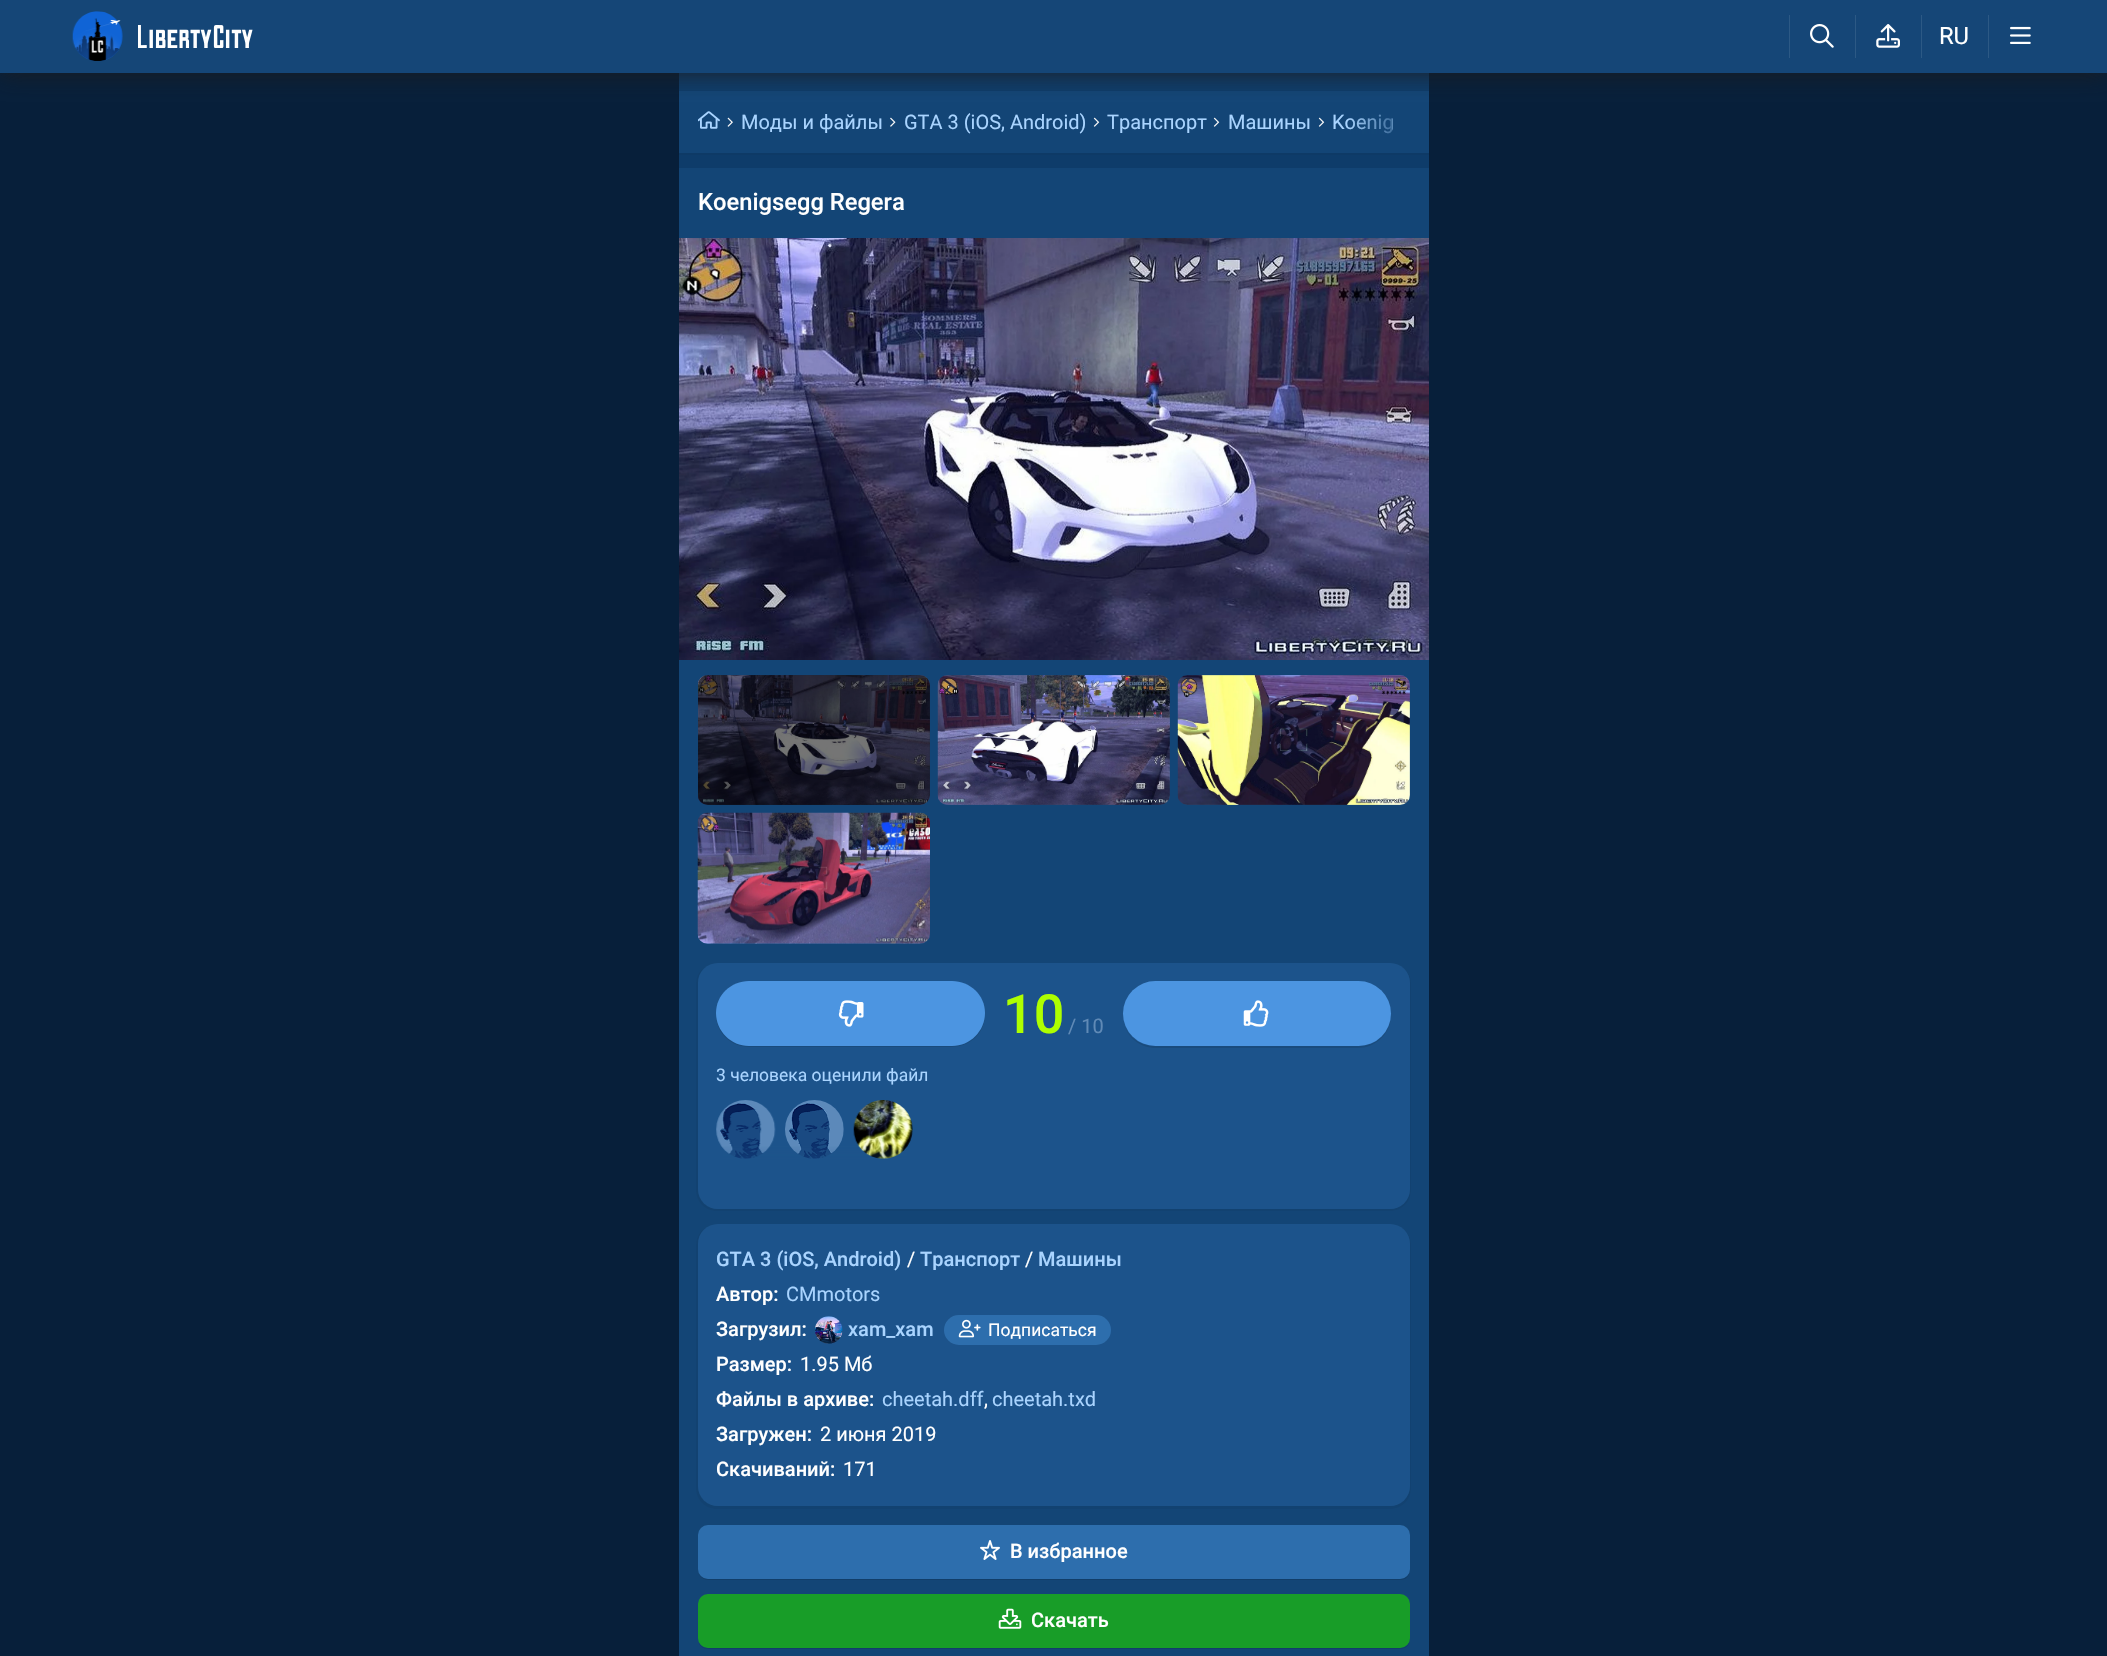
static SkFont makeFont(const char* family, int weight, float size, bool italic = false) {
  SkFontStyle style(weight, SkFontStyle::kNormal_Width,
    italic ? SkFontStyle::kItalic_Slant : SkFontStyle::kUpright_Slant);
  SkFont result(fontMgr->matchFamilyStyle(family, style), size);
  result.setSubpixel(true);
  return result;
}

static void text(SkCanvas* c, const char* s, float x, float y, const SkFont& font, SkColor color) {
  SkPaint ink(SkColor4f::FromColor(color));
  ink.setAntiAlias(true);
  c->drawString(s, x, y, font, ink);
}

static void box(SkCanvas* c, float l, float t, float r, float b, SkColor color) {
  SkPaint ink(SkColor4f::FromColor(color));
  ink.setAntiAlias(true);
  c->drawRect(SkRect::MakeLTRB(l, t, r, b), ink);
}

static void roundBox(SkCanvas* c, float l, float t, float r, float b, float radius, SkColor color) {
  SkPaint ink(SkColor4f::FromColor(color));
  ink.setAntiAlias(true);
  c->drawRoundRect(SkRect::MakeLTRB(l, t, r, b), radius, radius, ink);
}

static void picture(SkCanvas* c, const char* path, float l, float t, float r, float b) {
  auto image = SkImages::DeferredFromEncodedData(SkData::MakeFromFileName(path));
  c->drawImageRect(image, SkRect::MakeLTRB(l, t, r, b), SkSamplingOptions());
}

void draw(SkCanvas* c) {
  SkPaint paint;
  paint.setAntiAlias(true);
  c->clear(0xff071f3a);
  box(c, 679, 73, 1429, 168, 0xff0e3c6a);
  paint.setColor(0x0a000000);
  c->drawPath(SkPathBuilder(SkPathFillType::kEvenOdd).moveTo(678, 91).lineTo(678, 155).lineTo(1430, 155).lineTo(1430, 91).close().moveTo(679, 91).lineTo(679, 152).lineTo(1429, 152).lineTo(1429, 91).close().detach(), paint);
  box(c, 679, 91, 1429, 153, 0xff134576);
  picture(c, "img_06.png", 698, 111, 720, 129);
  paint.setColor(0xed1c1c1c);
  paint.setMaskFilter(SkMaskFilter::MakeBlur(kNormal_SkBlurStyle, 12.5f));
  c->drawRect(SkRect::MakeLTRB(0, 0, 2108, 73), paint);
  paint.setMaskFilter(nullptr);
  box(c, 0, 0, 2107, 73, 0xff154677);
  picture(c, "img_01.png", 72, 11, 123, 61);
  picture(c, "img_02.png", 138, 25, 253, 48);
  box(c, 1789, 15, 1790, 58, 0xff2c5985);
  picture(c, "img_03.png", 1810, 24, 1834, 48);
  box(c, 1855, 15, 1856, 58, 0xff2c5985);
  picture(c, "img_04.png", 1876, 24, 1900, 48);
  box(c, 1921, 15, 1922, 58, 0xff2c5985);
  SkFont face1 = makeFont("Roboto", 400, 23.75f);
  text(c, "RU", 1939, 44, face1, 0xffffffff);
  box(c, 1988, 15, 1989, 58, 0xff2c5985);
  picture(c, "img_05.png", 2010, 26, 2031, 44);
  picture(c, "img_07.png", 727, 117, 733, 127);
  SkFont face2 = makeFont("Roboto", 400, 20);
  text(c, "Моды и файлы", 741, 129, face2, 0xffa9d4ff);
  picture(c, "img_08.png", 890, 117, 896, 127);
  text(c, "GTA 3 (iOS, Android)", 904, 129, face2, 0xffa9d4ff);
  picture(c, "img_09.png", 1093, 117, 1100, 127);
  text(c, "Транспорт", 1107, 129, face2, 0xffa9d4ff);
  picture(c, "img_09.png", 1213, 117, 1220, 127);
  text(c, "Машины", 1228, 129, face2, 0xffa9d4ff);
  picture(c, "img_09.png", 1318, 117, 1325, 127);
  text(c, "Koenig", 1332, 129, face2, 0xffa9d4ff);
  {
    const SkColor colors[] = {0xff134576, 0x00134576};
    const float stops[] = {0, 0.5f};
    const SkPoint ends[] = {{1410, 122}, {1285, 122}};
    paint.setShader(SkGradientShader::MakeLinear(ends, colors, stops, 2, SkTileMode::kClamp));
    paint.setAlpha(255);
  }
  c->drawRect(SkRect::MakeLTRB(1349, 114, 1392, 134), paint);
  box(c, 679, 168, 1429, 1656, 0xff134576);
  SkFont face3 = makeFont("Roboto", 500, 23.75f);
  text(c, "Koenigsegg Regera", 698, 210, face3, 0xffffffff);
  picture(c, "img_10.png", 679, 238, 1429, 660);
  roundBox(c, 698, 675, 930, 805, 10, 0xff215990);
  picture(c, "img_11.png", 698, 675, 930, 805);
  roundBox(c, 698, 675, 930, 805, 10, 0x8a000000);
  roundBox(c, 938, 675, 1170, 805, 10, 0xff215990);
  picture(c, "img_12.png", 937, 675, 1170, 805);
  roundBox(c, 1178, 675, 1410, 805, 10, 0xff215990);
  picture(c, "img_13.png", 1177, 675, 1410, 805);
  roundBox(c, 698, 813, 930, 944, 10, 0xff215990);
  picture(c, "img_14.png", 697, 812, 930, 944);
  paint.setShader(nullptr);
  paint.setColor(0xff124271);
  c->drawPath(SkPathBuilder().moveTo(706, 966).cubicTo(700, 970, 696, 976, 696, 984).lineTo(696, 1190).cubicTo(696, 1202, 705, 1211, 717, 1211).lineTo(1390, 1211).cubicTo(1402, 1211, 1411, 1202, 1411, 1190).lineTo(1411, 984).cubicTo(1411, 978, 1409, 973, 1405, 970).cubicTo(1408, 973, 1410, 978, 1410, 982).lineTo(1410, 1189).cubicTo(1410, 1200, 1401, 1209, 1390, 1209).lineTo(718, 1209).cubicTo(706, 1209, 698, 1200, 698, 1189).lineTo(698, 982).cubicTo(698, 976, 701, 970, 706, 966).close().detach(), paint);
  roundBox(c, 698, 963, 1410, 1209, 20, 0xff1c538b);
  paint.setColor(0xff194b7d);
  c->drawPath(SkPathBuilder().moveTo(716, 1009).lineTo(716, 1013).cubicTo(716, 1031, 731, 1046, 749, 1046).lineTo(952, 1046).cubicTo(970, 1046, 985, 1031, 985, 1013).lineTo(984, 1009).lineTo(985, 1015).cubicTo(985, 1033, 970, 1047, 952, 1047).lineTo(749, 1047).cubicTo(731, 1047, 716, 1033, 716, 1015).close().detach(), paint);
  paint.setColor(0xff4c95e1);
  c->drawPath(SkPathBuilder().moveTo(952, 981).lineTo(749, 981).cubicTo(731, 981, 716, 995, 716, 1013).cubicTo(716, 1031, 731, 1046, 749, 1046).lineTo(952, 1046).cubicTo(970, 1046, 985, 1031, 985, 1013).cubicTo(985, 995, 970, 981, 952, 981).close().detach(), paint);
  picture(c, "img_15.png", 838, 1000, 864, 1027);
  SkFont face4 = makeFont("Roboto", 500, 54);
  text(c, "10", 1003, 1033, face4, 0xffaeff00);
  text(c, "/ 10", 1068, 1033, face2, 0xff608ab6);
  paint.setColor(0xff194b7d);
  c->drawPath(SkPathBuilder().moveTo(1124, 1024).cubicTo(1128, 1038, 1140, 1048, 1156, 1048).lineTo(1358, 1048).cubicTo(1375, 1048, 1389, 1035, 1391, 1019).cubicTo(1388, 1035, 1375, 1046, 1359, 1046).lineTo(1155, 1046).cubicTo(1140, 1046, 1128, 1037, 1124, 1024).close().detach(), paint);
  roundBox(c, 1123, 981, 1391, 1046, 32.5f, 0xff4c95e1);
  picture(c, "img_16.png", 1243, 1000, 1269, 1027);
  SkFont face5 = makeFont("Roboto", 400, 17.5f);
  text(c, "3 человека оценили файл", 716, 1081, face5, 0xffa9d4ff);
  picture(c, "img_17.png", 716, 1100, 776, 1159);
  picture(c, "img_18.png", 785, 1100, 844, 1159);
  picture(c, "img_19.png", 853, 1100, 913, 1159);
  {
    const SkColor colors[] = {0xff1c538b, 0x001c538b};
    const float stops[] = {0, 0.5f};
    const SkPoint ends[] = {{1054, 1195}, {1054, 1095}};
    paint.setShader(SkGradientShader::MakeLinear(ends, colors, stops, 2, SkTileMode::kClamp));
    paint.setAlpha(255);
  }
  c->drawRect(SkRect::MakeLTRB(723, 1146, 907, 1159), paint);
  paint.setShader(nullptr);
  paint.setColor(0xff124271);
  c->drawPath(SkPathBuilder().moveTo(710, 1225).cubicTo(702, 1228, 696, 1236, 696, 1245).lineTo(696, 1488).cubicTo(696, 1500, 705, 1509, 717, 1509).lineTo(1390, 1509).cubicTo(1402, 1509, 1411, 1500, 1411, 1488).lineTo(1411, 1245).cubicTo(1411, 1238, 1408, 1232, 1402, 1228).cubicTo(1407, 1232, 1410, 1237, 1410, 1244).lineTo(1410, 1486).cubicTo(1410, 1497, 1401, 1506, 1390, 1506).lineTo(718, 1506).cubicTo(706, 1506, 698, 1497, 698, 1486).lineTo(698, 1244).cubicTo(698, 1235, 703, 1228, 710, 1225).close().detach(), paint);
  roundBox(c, 698, 1224, 1410, 1506, 20, 0xff1c538b);
  SkFont face6 = makeFont("Roboto", 500, 20);
  text(c, "GTA 3 (iOS, Android)", 716, 1266, face6, 0xffa9d4ff);
  text(c, "/", 907, 1266, face2, 0xffffffff);
  text(c, "Транспорт", 920, 1266, face6, 0xffa9d4ff);
  text(c, "/", 1025, 1266, face2, 0xffffffff);
  text(c, "Машины", 1038, 1266, face6, 0xffa9d4ff);
  text(c, "Автор:", 716, 1301, face6, 0xffffffff);
  text(c, "CMmotors", 786, 1301, face2, 0xffa9d4ff);
  text(c, "Загрузил:", 716, 1336, face6, 0xffffffff);
  picture(c, "img_20.png", 815, 1316, 843, 1344);
  text(c, "xam_xam", 848, 1336, face6, 0xffa9d4ff);
  roundBox(c, 944, 1315, 1111, 1345, 15, 0xff2d6ead);
  picture(c, "img_21.png", 958, 1319, 981, 1338);
  text(c, "Подписаться", 988, 1336, face5, 0xffffffff);
  text(c, "Размер:", 716, 1371, face6, 0xffffffff);
  text(c, "1.95 Мб", 800, 1371, face2, 0xffffffff);
  text(c, "Файлы в архиве:", 716, 1406, face6, 0xffffffff);
  text(c, "cheetah.dff", 882, 1406, face2, 0xffa9d4ff);
  text(c, ",", 984, 1406, face2, 0xffffffff);
  text(c, "cheetah.txd", 992, 1406, face2, 0xffa9d4ff);
  text(c, "Загружен:", 716, 1441, face6, 0xffffffff);
  text(c, "2 июня 2019", 820, 1441, face2, 0xffffffff);
  text(c, "Скачиваний:", 716, 1476, face6, 0xffffffff);
  text(c, "171", 843, 1476, face2, 0xffffffff);
  paint.setColor(0xff113e6a);
  c->drawPath(SkPathBuilder().moveTo(698, 1573).cubicTo(700, 1577, 704, 1580, 708, 1580).lineTo(1400, 1580).cubicTo(1406, 1580, 1410, 1576, 1410, 1570).lineTo(1410, 1569).cubicTo(1410, 1574, 1406, 1579, 1400, 1579).lineTo(708, 1579).cubicTo(704, 1579, 700, 1576, 698, 1573).close().detach(), paint);
  roundBox(c, 698, 1525, 1410, 1579, 10, 0xff2d6ead);
  picture(c, "img_22.png", 980, 1540, 1000, 1560);
  text(c, "В избранное", 1010, 1558, face6, 0xffffffff);
  c->drawPath(SkPathBuilder().moveTo(698, 1641).cubicTo(699, 1646, 703, 1649, 708, 1649).lineTo(1400, 1649).cubicTo(1406, 1649, 1410, 1645, 1410, 1639).lineTo(1410, 1638).cubicTo(1410, 1643, 1406, 1648, 1400, 1648).lineTo(708, 1648).cubicTo(703, 1648, 700, 1645, 698, 1641).close().detach(), paint);
  roundBox(c, 698, 1594, 1410, 1648, 10, 0xff189d28);
  picture(c, "img_23.png", 998, 1608, 1022, 1629);
  text(c, "Скачать", 1031, 1627, face6, 0xffffffff);
}
